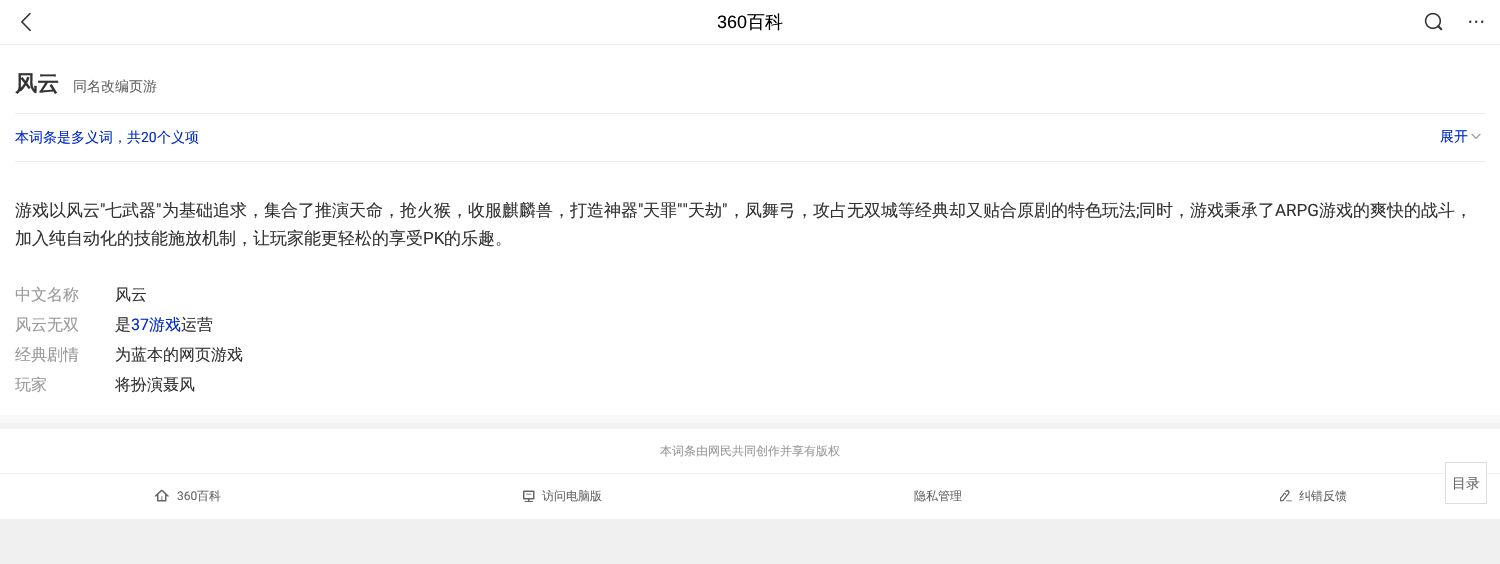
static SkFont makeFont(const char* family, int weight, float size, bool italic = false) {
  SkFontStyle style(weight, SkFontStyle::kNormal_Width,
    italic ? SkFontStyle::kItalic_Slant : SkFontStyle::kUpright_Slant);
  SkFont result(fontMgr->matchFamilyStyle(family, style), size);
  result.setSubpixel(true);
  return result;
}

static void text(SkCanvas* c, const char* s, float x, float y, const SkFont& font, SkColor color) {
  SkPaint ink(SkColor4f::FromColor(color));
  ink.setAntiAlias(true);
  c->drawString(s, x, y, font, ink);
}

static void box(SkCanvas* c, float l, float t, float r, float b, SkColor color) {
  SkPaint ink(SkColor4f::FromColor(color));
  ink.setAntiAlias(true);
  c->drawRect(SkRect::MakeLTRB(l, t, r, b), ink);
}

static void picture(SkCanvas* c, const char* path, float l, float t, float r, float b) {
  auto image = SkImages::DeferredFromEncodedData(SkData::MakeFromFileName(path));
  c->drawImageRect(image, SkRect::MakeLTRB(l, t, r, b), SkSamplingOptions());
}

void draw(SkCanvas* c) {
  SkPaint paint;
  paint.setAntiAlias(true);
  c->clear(0xfff0f0f0);
  box(c, 0, 45, 1500, 519, 0xffffffff);
  box(c, 0, 0, 1500, 44, 0xffffffff);
  box(c, 0, 44, 1500, 45, 0xffededed);
  picture(c, "img_01.png", 21, 12, 31, 32);
  SkFont face1 = makeFont("Liberation Sans", 400, 18);
  text(c, "360", 717, 28, face1, 0xff000000);
  SkFont face2 = makeFont("WenQuanYi Zen Hei", 500, 18);
  text(c, "百科", 747, 28, face2, 0xff000000);
  picture(c, "img_02.png", 1424, 12, 1443, 31);
  paint.setColor(0xff333333);
  c->drawCircle(1470.2f, 21.8f, 1.2f, paint);
  c->drawCircle(1476.2f, 21.8f, 1.2f, paint);
  c->drawCircle(1482.2f, 21.8f, 1.2f, paint);
  box(c, 0, 473, 1500, 474, 0xfff2f2f2);
  box(c, 1446, 473, 1486, 474, 0xffffffff);
  paint.setStyle(SkPaint::kStroke_Style);
  paint.setStrokeWidth(1);
  paint.setColor(0xffdddddd);
  c->drawRect(SkRect::MakeLTRB(1445.5f, 462.5f, 1486.5f, 503.5f), paint);
  SkFont face3 = makeFont("WenQuanYi Zen Hei", 500, 14);
  text(c, "目录", 1452, 488, face3, 0xff666666);
  SkFont face4 = makeFont("WenQuanYi Zen Hei", 700, 22);
  text(c, "风云", 15, 91, face4, 0xff333333);
  text(c, "同名改编页游", 73, 91, face3, 0xff666666);
  box(c, 15, 113, 1485, 114, 0xffeaeaea);
  text(c, "本词条是多义词，共", 15, 142, face3, 0xff002ad0);
  SkFont face5 = makeFont("Roboto", 400, 14);
  text(c, "20", 141, 142, face5, 0xff002ad0);
  text(c, "个义项", 157, 142, face3, 0xff002ad0);
  text(c, "展开", 1440, 141, face3, 0xff002ad0);
  picture(c, "img_03.png", 1471, 133, 1481, 139);
  box(c, 15, 161, 1485, 162, 0xffeaeaea);
  SkFont face6 = makeFont("WenQuanYi Zen Hei", 500, 17);
  text(c, "游戏以风云", 15, 216, face6, 0xff333333);
  SkFont face7 = makeFont("Roboto", 400, 17);
  text(c, "\"", 100, 216, face7, 0xff333333);
  text(c, "七武器", 105, 216, face6, 0xff333333);
  text(c, "\"", 156, 216, face7, 0xff333333);
  text(c, "为基础追求，集合了推演天命，抢火猴，收服麒麟兽，打造神器", 162, 216, face6, 0xff333333);
  text(c, "\"", 638, 216, face7, 0xff333333);
  text(c, "天罪", 643, 216, face6, 0xff333333);
  text(c, "\"\"", 677, 216, face7, 0xff333333);
  text(c, "天劫", 688, 216, face6, 0xff333333);
  text(c, "\"", 722, 216, face7, 0xff333333);
  text(c, "，凤舞弓，攻占无双城等经典却又贴合原剧的特色玩法", 728, 216, face6, 0xff333333);
  text(c, ";", 1136, 216, face7, 0xff333333);
  text(c, "同时，游戏秉承了", 1139, 216, face6, 0xff333333);
  text(c, "ARPG", 1275, 216, face7, 0xff333333);
  text(c, "游戏的爽快的战斗，", 1319, 216, face6, 0xff333333);
  text(c, "加入纯自动化的技能施放机制，让玩家能更轻松的享受", 15, 244, face6, 0xff333333);
  text(c, "PK", 423, 244, face7, 0xff333333);
  text(c, "的乐趣。", 444, 244, face6, 0xff333333);
  box(c, 0, 415, 1500, 423, 0xfff8f8f8);
  SkFont face8 = makeFont("WenQuanYi Zen Hei", 500, 16);
  text(c, "中文名称", 15, 300, face8, 0xff999999);
  text(c, "风云", 115, 300, face8, 0xff333333);
  text(c, "风云无双", 15, 330, face8, 0xff999999);
  text(c, "是", 115, 330, face8, 0xff333333);
  SkFont face9 = makeFont("Roboto", 400, 16);
  text(c, "37", 131, 330, face9, 0xff002ad0);
  text(c, "游戏", 149, 330, face8, 0xff002ad0);
  text(c, "运营", 181, 330, face8, 0xff333333);
  text(c, "经典剧情", 15, 360, face8, 0xff999999);
  text(c, "为蓝本的网页游戏", 115, 360, face8, 0xff333333);
  text(c, "玩家", 15, 390, face8, 0xff999999);
  text(c, "将扮演聂风", 115, 390, face8, 0xff333333);
  box(c, 0, 423, 1500, 429, 0xfff2f2f2);
  SkFont face10 = makeFont("WenQuanYi Zen Hei", 500, 12);
  text(c, "本词条由网民共同创作并享有版权", 660, 455, face10, 0xff999999);
  picture(c, "img_04.png", 154, 489, 169, 502);
  SkFont face11 = makeFont("Roboto", 400, 12);
  text(c, "360", 177, 500, face11, 0xff666666);
  text(c, "百科", 197, 500, face10, 0xff666666);
  picture(c, "img_05.png", 523, 490, 535, 502);
  text(c, "访问电脑版", 542, 500, face10, 0xff666666);
  text(c, "隐私管理", 914, 500, face10, 0xff666666);
  picture(c, "img_06.png", 1279, 489, 1292, 502);
  text(c, "纠错反馈", 1299, 500, face10, 0xff666666);
}
